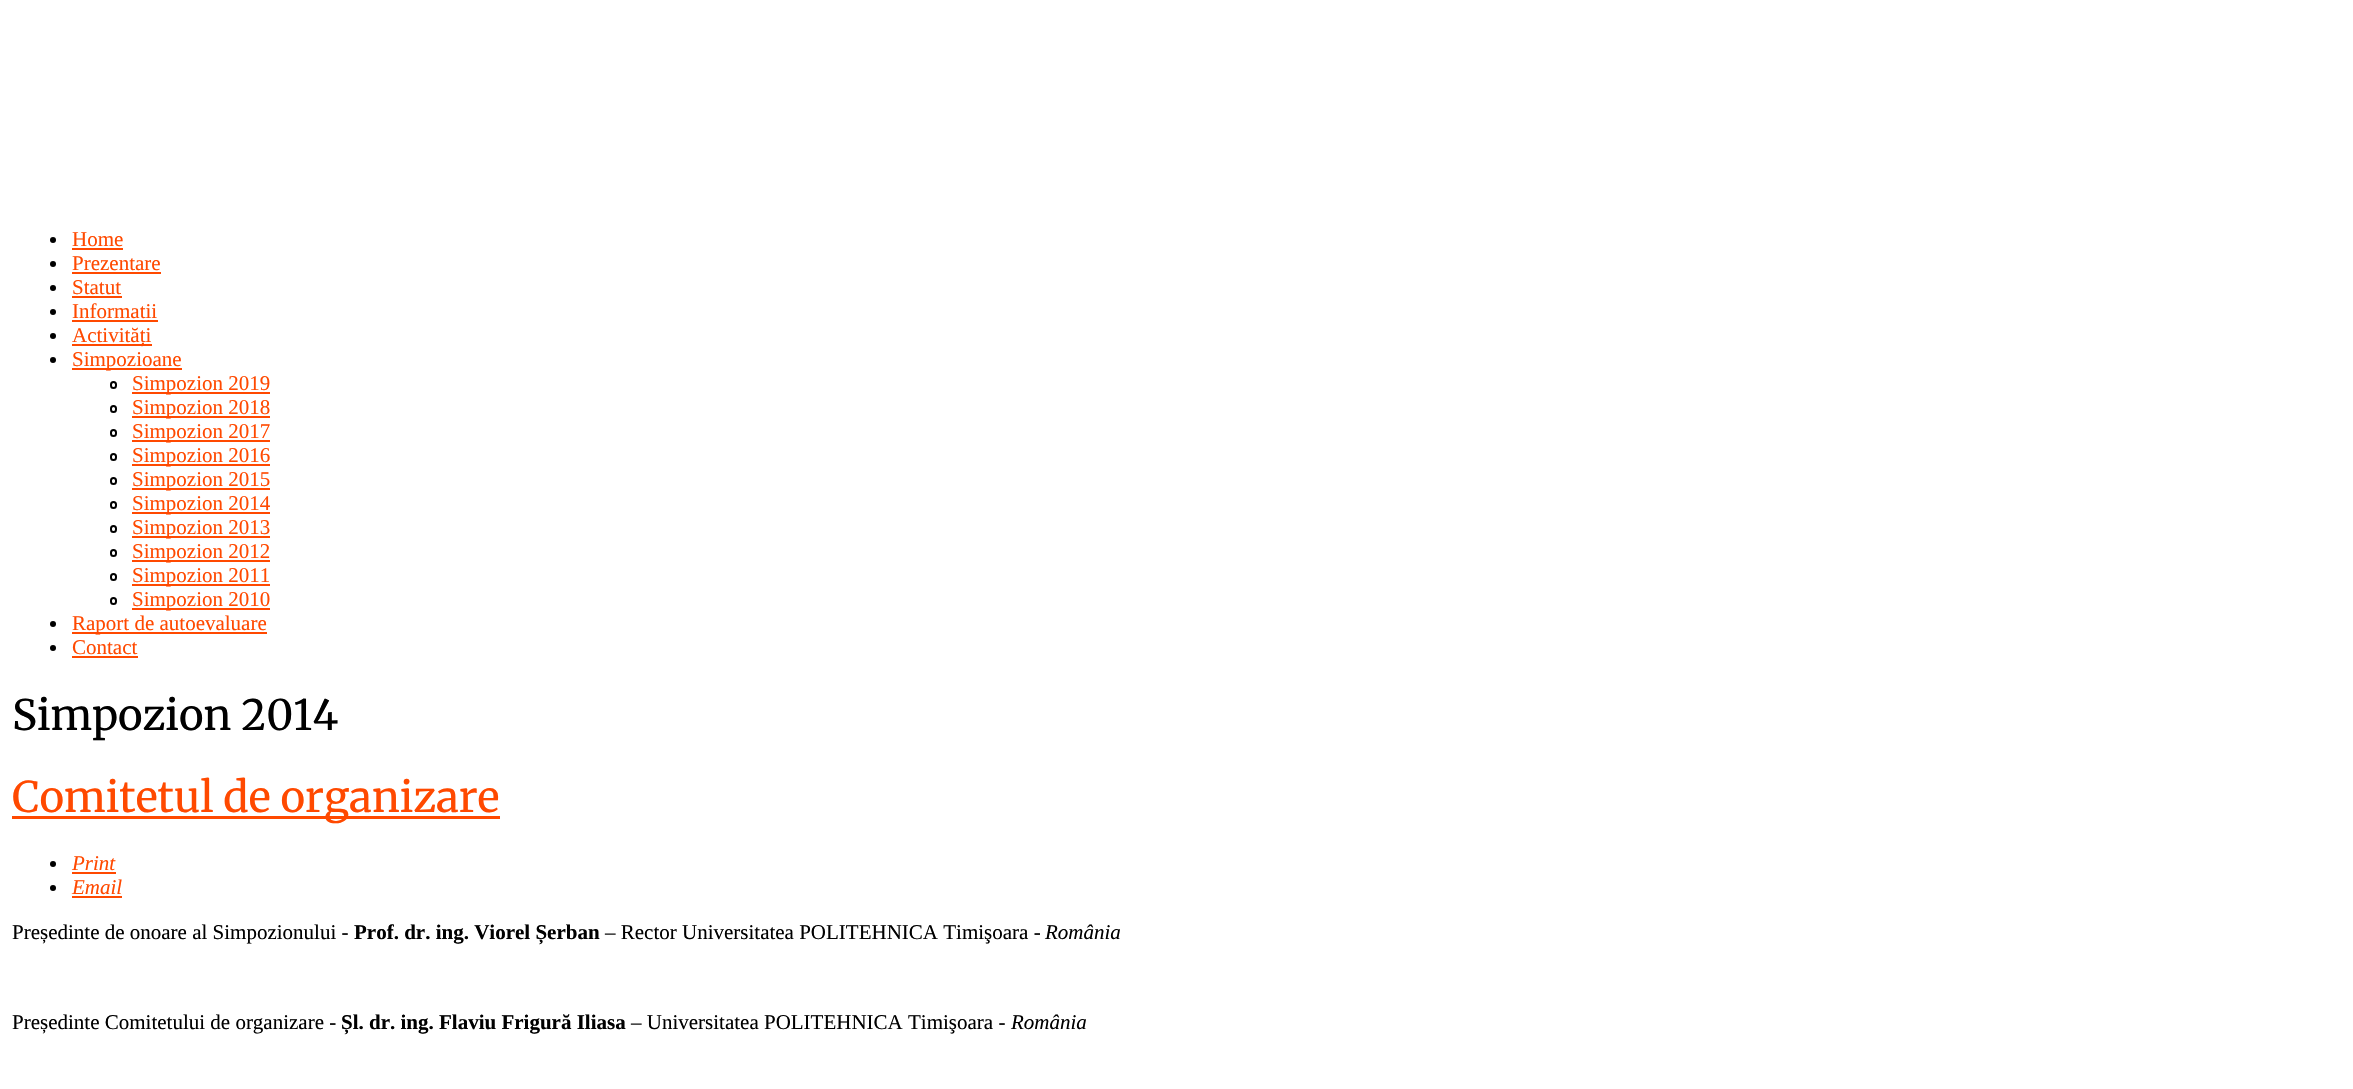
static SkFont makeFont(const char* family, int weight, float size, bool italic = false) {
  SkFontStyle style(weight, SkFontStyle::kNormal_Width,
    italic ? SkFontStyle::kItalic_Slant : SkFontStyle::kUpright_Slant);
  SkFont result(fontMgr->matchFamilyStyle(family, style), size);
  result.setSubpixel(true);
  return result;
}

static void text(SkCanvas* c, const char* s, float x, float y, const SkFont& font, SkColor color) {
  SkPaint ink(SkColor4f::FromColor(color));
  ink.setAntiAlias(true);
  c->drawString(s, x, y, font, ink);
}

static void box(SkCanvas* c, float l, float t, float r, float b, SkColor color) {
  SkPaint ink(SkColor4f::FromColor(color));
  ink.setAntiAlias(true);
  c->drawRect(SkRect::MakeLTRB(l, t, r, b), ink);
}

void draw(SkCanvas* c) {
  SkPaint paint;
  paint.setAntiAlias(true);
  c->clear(0xffffffff);
  paint.setColor(0xff000000);
  c->drawCircle(53, 240, 3, paint);
  SkFont face1 = makeFont("Liberation Serif", 400, 21);
  text(c, "Home", 72, 246, face1, 0xffff4900);
  box(c, 72, 248, 123, 250, 0xffff4900);
  c->drawCircle(53, 264, 3, paint);
  text(c, "Prezentare", 72, 270, face1, 0xffff4900);
  box(c, 72, 272, 161, 274, 0xffff4900);
  c->drawCircle(53, 288, 3, paint);
  text(c, "Statut", 72, 294, face1, 0xffff4900);
  box(c, 72, 296, 122, 298, 0xffff4900);
  c->drawCircle(53, 312, 3, paint);
  text(c, "Informatii", 72, 318, face1, 0xffff4900);
  box(c, 72, 320, 158, 322, 0xffff4900);
  c->drawCircle(53, 336, 3, paint);
  box(c, 72, 344, 152, 346, 0xffff4900);
  text(c, "Activități", 72, 342, face1, 0xffff4900);
  c->drawCircle(53, 360, 3, paint);
  box(c, 72, 368, 182, 370, 0xffff4900);
  text(c, "Simpozioane", 72, 366, face1, 0xffff4900);
  paint.setStyle(SkPaint::kStroke_Style);
  paint.setStrokeWidth(2);
  c->drawRoundRect(SkRect::MakeLTRB(111, 382, 116, 388), 2.5f, 2.5f, paint);
  box(c, 132, 392, 270, 394, 0xffff4900);
  text(c, "Simpozion 2019", 132, 390, face1, 0xffff4900);
  c->drawRoundRect(SkRect::MakeLTRB(111, 406, 116, 412), 2.5f, 2.5f, paint);
  box(c, 132, 416, 270, 418, 0xffff4900);
  text(c, "Simpozion 2018", 132, 414, face1, 0xffff4900);
  c->drawRoundRect(SkRect::MakeLTRB(111, 430, 116, 436), 2.5f, 2.5f, paint);
  box(c, 132, 440, 270, 442, 0xffff4900);
  text(c, "Simpozion 2017", 132, 438, face1, 0xffff4900);
  c->drawRoundRect(SkRect::MakeLTRB(111, 454, 116, 460), 2.5f, 2.5f, paint);
  box(c, 132, 464, 270, 466, 0xffff4900);
  text(c, "Simpozion 2016", 132, 462, face1, 0xffff4900);
  c->drawRoundRect(SkRect::MakeLTRB(111, 478, 116, 484), 2.5f, 2.5f, paint);
  box(c, 132, 488, 270, 490, 0xffff4900);
  text(c, "Simpozion 2015", 132, 486, face1, 0xffff4900);
  c->drawRoundRect(SkRect::MakeLTRB(111, 502, 116, 508), 2.5f, 2.5f, paint);
  box(c, 132, 512, 270, 514, 0xffff4900);
  text(c, "Simpozion 2014", 132, 510, face1, 0xffff4900);
  c->drawRoundRect(SkRect::MakeLTRB(111, 526, 116, 532), 2.5f, 2.5f, paint);
  box(c, 132, 536, 270, 538, 0xffff4900);
  text(c, "Simpozion 2013", 132, 534, face1, 0xffff4900);
  c->drawRoundRect(SkRect::MakeLTRB(111, 550, 116, 556), 2.5f, 2.5f, paint);
  box(c, 132, 560, 270, 562, 0xffff4900);
  text(c, "Simpozion 2012", 132, 558, face1, 0xffff4900);
  c->drawRoundRect(SkRect::MakeLTRB(111, 574, 116, 580), 2.5f, 2.5f, paint);
  box(c, 132, 584, 270, 586, 0xffff4900);
  text(c, "Simpozion 2011", 132, 582, face1, 0xffff4900);
  c->drawRoundRect(SkRect::MakeLTRB(111, 598, 116, 604), 2.5f, 2.5f, paint);
  box(c, 132, 608, 270, 610, 0xffff4900);
  text(c, "Simpozion 2010", 132, 606, face1, 0xffff4900);
  paint.setStyle(SkPaint::kFill_Style);
  c->drawCircle(53, 624, 3, paint);
  box(c, 72, 632, 267, 634, 0xffff4900);
  text(c, "Raport de autoevaluare", 72, 630, face1, 0xffff4900);
  c->drawCircle(53, 648, 3, paint);
  text(c, "Contact", 72, 654, face1, 0xffff4900);
  box(c, 72, 656, 138, 658, 0xffff4900);
  SkFont face2 = makeFont("Merriweather", 400, 42);
  text(c, "Simpozion 2014", 12, 730, face2, 0xff000000);
  box(c, 12, 816, 500, 819, 0xffff4900);
  text(c, "Comitetul de organizare", 12, 812, face2, 0xffff4900);
  c->drawCircle(53, 864, 3, paint);
  SkFont face3 = makeFont("Liberation Serif", 400, 21, true);
  text(c, "Print", 72, 870, face3, 0xffff4900);
  box(c, 72, 872, 116, 874, 0xffff4900);
  c->drawCircle(53, 888, 3, paint);
  text(c, "Email", 72, 894, face3, 0xffff4900);
  box(c, 72, 896, 122, 898, 0xffff4900);
  text(c, "Președinte de onoare al Simpozionului -", 12, 939, face1, 0xff000000);
  SkFont face4 = makeFont("Liberation Serif", 700, 21);
  text(c, "Prof. dr. ing. Viorel Șerban", 354, 939, face4, 0xff000000);
  text(c, "– Rector Universitatea POLITEHNICA Timişoara -", 605, 939, face1, 0xff000000);
  text(c, "România", 1045, 939, face3, 0xff000000);
  text(c, "Președinte Comitetului de organizare -", 12, 1029, face1, 0xff000000);
  text(c, "Șl. dr. ing. Flaviu Frigură Iliasa", 341, 1029, face4, 0xff000000);
  text(c, "– Universitatea POLITEHNICA Timişoara -", 631, 1029, face1, 0xff000000);
  text(c, "România", 1011, 1029, face3, 0xff000000);
}
